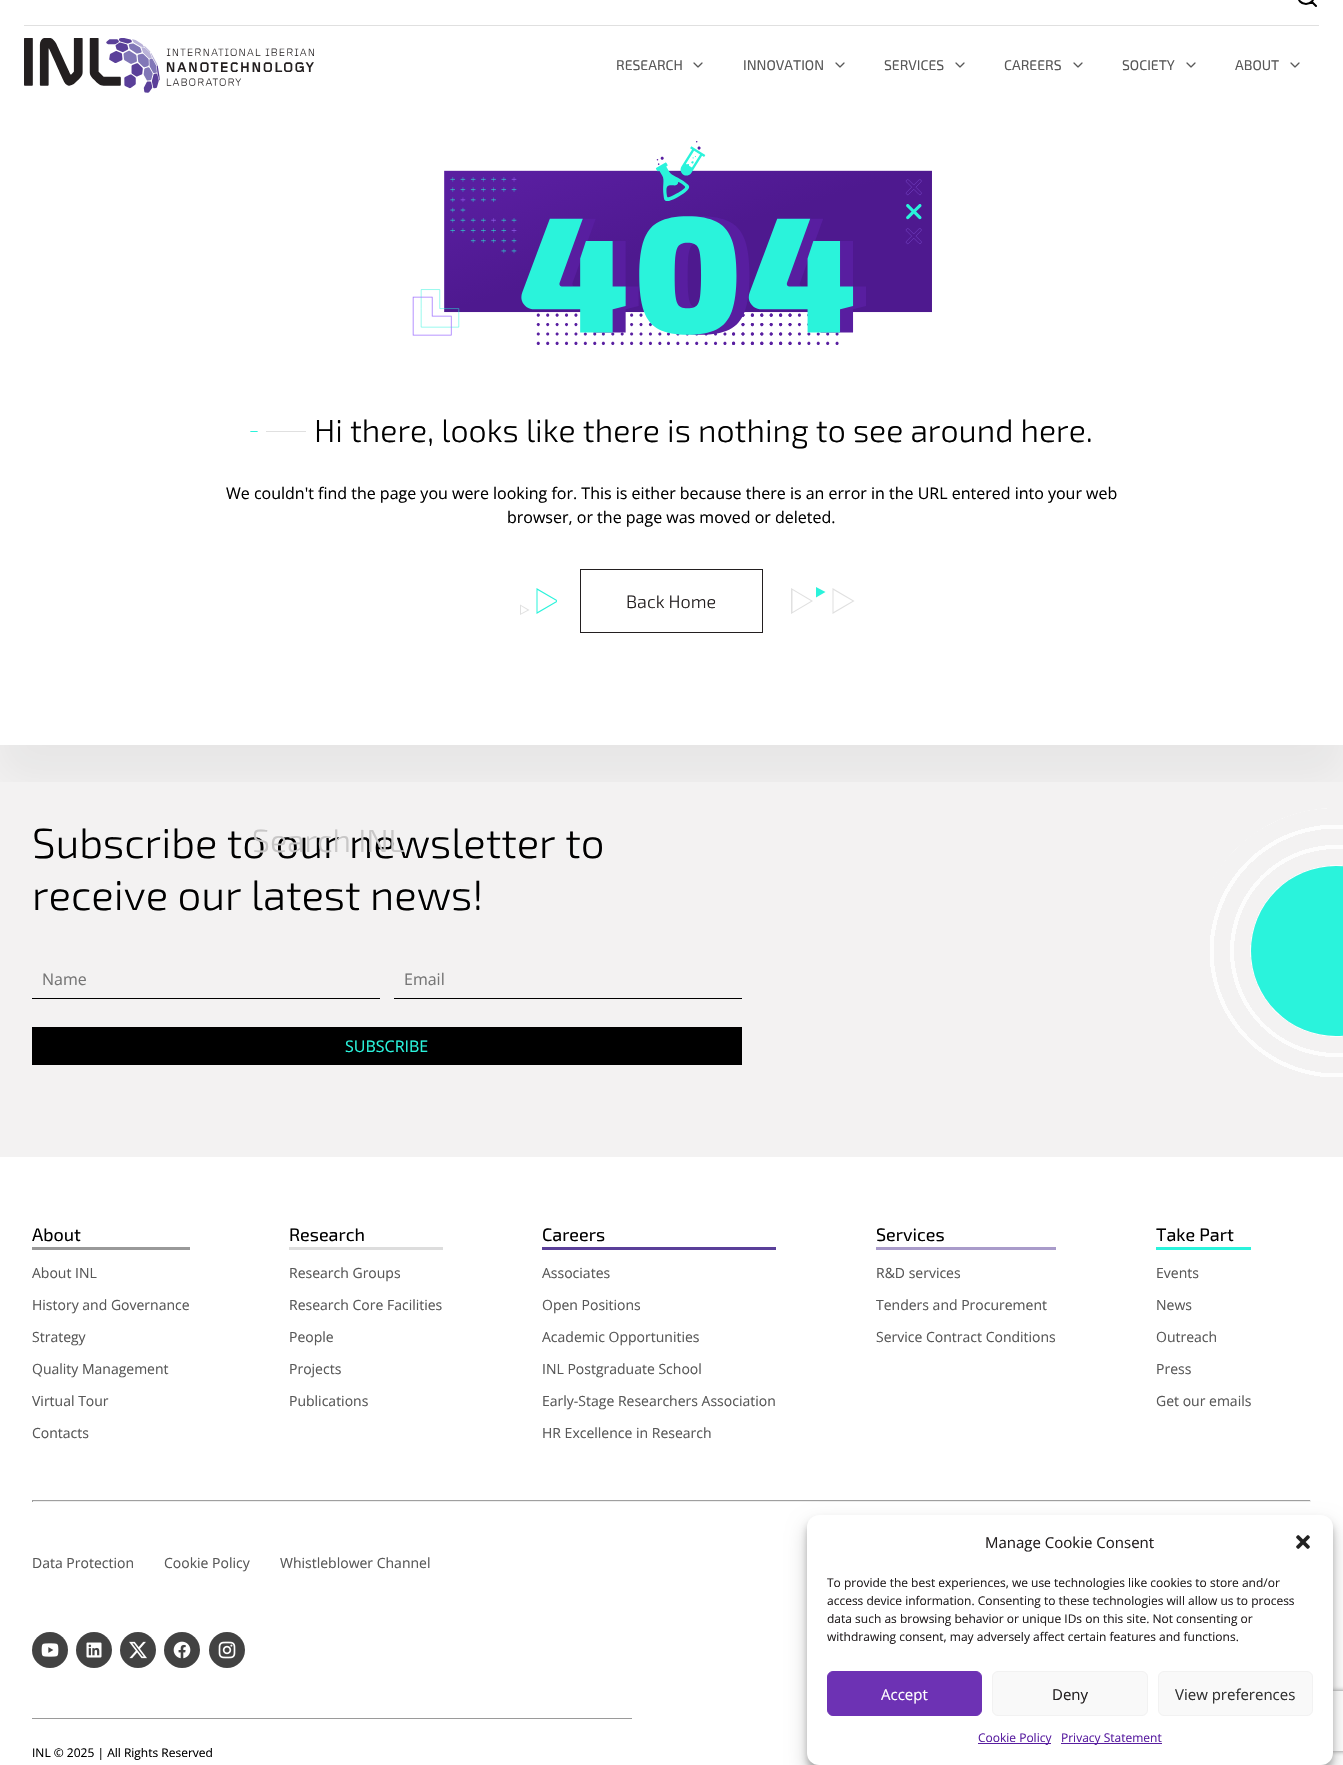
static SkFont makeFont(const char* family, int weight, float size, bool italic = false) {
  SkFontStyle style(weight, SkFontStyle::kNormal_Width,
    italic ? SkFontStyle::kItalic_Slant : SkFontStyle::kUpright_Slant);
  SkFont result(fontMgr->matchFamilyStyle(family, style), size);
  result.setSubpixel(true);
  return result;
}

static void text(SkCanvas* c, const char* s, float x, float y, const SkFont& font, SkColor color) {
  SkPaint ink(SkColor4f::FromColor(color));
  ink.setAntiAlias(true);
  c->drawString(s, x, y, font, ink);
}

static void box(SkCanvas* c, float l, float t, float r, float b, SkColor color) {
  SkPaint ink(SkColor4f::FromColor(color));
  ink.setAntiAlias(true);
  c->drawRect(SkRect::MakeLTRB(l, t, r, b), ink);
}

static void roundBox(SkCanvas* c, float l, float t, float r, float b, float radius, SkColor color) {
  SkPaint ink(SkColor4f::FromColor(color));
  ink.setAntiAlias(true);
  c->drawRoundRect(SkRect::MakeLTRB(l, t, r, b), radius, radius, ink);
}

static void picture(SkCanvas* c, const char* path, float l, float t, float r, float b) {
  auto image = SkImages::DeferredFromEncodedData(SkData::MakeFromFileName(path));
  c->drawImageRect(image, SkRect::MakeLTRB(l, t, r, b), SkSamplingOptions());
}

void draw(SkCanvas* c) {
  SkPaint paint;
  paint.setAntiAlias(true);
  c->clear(0xffffffff);
  box(c, 0, 745, 1343, 1157, 0xfff3f2f2);
  {
    const SkColor colors[] = {0x00000000, 0x00ffffff, 0xccffffff, 0xccffffff, 0x00ffffff, 0x00ffffff, 0xccffffff, 0xccffffff, 0x00ffffff, 0x00ffffff, 0xccffffff, 0xccffffff, 0x00ffffff, 0x00ffffff, 0xccffffff, 0xccffffff, 0x00ffffff, 0x00ffffff, 0xccffffff, 0xccffffff, 0x00ffffff, 0x00ffffff, 0xccffffff, 0xccffffff, 0x00ffffff, 0x00ffffff, 0xccffffff, 0xccffffff, 0x00ffffff, 0x00ffffff, 0xccffffff, 0xccffffff, 0x00ffffff, 0x00ffffff, 0xccffffff, 0xccffffff, 0x00ffffff, 0x00ffffff, 0xccffffff, 0xccffffff, 0x00ffffff, 0x00ffffff, 0xccffffff, 0xccffffff, 0x00ffffff, 0x00ffffff, 0xccffffff, 0xccffffff, 0x00ffffff, 0x00ffffff, 0xccffffff, 0xccffffff, 0x00ffffff, 0x00ffffff, 0xccffffff, 0xccffffff, 0x00ffffff, 0x00ffffff, 0xccffffff, 0xccffffff, 0x00ffffff, 0x00ffffff, 0xccffffff, 0xccffffff, 0x00ffffff, 0x00ffffff, 0xccffffff, 0xccffffff, 0x00ffffff, 0x00ffffff, 0xccffffff, 0xccffffff, 0x00ffffff, 0x00ffffff, 0xccffffff, 0xccffffff, 0x00ffffff, 0x00ffffff, 0xccffffff, 0xccffffff, 0x00ffffff, 0x00ffffff, 0xccffffff, 0xccffffff, 0x00ffffff, 0x00ffffff, 0xccffffff, 0xccffffff, 0x00ffffff, 0x00ffffff, 0xccffffff, 0xccffffff, 0x00ffffff, 0x00ffffff, 0xccffffff, 0xccffffff, 0x00ffffff, 0x00ffffff, 0xccffffff, 0xccffffff, 0x00ffffff, 0x00ffffff, 0xccffffff, 0xccffffff, 0x00ffffff, 0x00ffffff, 0xccffffff, 0xccffffff, 0x00ffffff, 0x00ffffff, 0xccffffff, 0xccffffff, 0x00ffffff, 0x00ffffff, 0xccffffff, 0xccffffff, 0x00ffffff, 0x00ffffff, 0xccffffff, 0xccffffff, 0x00ffffff, 0x00ffffff, 0xccffffff, 0xccffffff, 0x00ffffff, 0x00ffffff, 0xccffffff, 0xccffffff, 0x00ffffff, 0x00ffffff, 0xccffffff, 0xccffffff, 0x00ffffff, 0x00ffffff, 0xccffffff, 0xccffffff, 0x00ffffff, 0x00ffffff, 0xccffffff, 0xccffffff, 0x00ffffff, 0x00ffffff, 0xccffffff, 0xccffffff, 0x00ffffff, 0x00ffffff, 0xccffffff, 0xccffffff, 0x00ffffff, 0x00ffffff, 0xccffffff, 0xccffffff, 0x00ffffff, 0x00ffffff, 0xccffffff, 0xccffffff};
    const float stops[] = {0, 0.02f, 0.02f, 0.03f, 0.03f, 0.05f, 0.05f, 0.05f, 0.05f, 0.07f, 0.07f, 0.08f, 0.08f, 0.1f, 0.1f, 0.1f, 0.1f, 0.12f, 0.12f, 0.13f, 0.13f, 0.15f, 0.15f, 0.15f, 0.15f, 0.17f, 0.17f, 0.18f, 0.18f, 0.2f, 0.2f, 0.21f, 0.21f, 0.23f, 0.23f, 0.23f, 0.23f, 0.25f, 0.25f, 0.26f, 0.26f, 0.28f, 0.28f, 0.28f, 0.28f, 0.3f, 0.3f, 0.31f, 0.31f, 0.33f, 0.33f, 0.33f, 0.33f, 0.35f, 0.35f, 0.36f, 0.36f, 0.38f, 0.38f, 0.38f, 0.38f, 0.41f, 0.41f, 0.41f, 0.41f, 0.43f, 0.43f, 0.44f, 0.44f, 0.46f, 0.46f, 0.46f, 0.46f, 0.48f, 0.48f, 0.49f, 0.49f, 0.51f, 0.51f, 0.51f, 0.51f, 0.53f, 0.53f, 0.54f, 0.54f, 0.56f, 0.56f, 0.56f, 0.56f, 0.59f, 0.59f, 0.59f, 0.59f, 0.61f, 0.61f, 0.62f, 0.62f, 0.64f, 0.64f, 0.64f, 0.64f, 0.66f, 0.66f, 0.67f, 0.67f, 0.69f, 0.69f, 0.69f, 0.69f, 0.71f, 0.71f, 0.72f, 0.72f, 0.74f, 0.74f, 0.74f, 0.74f, 0.76f, 0.76f, 0.77f, 0.77f, 0.79f, 0.79f, 0.79f, 0.79f, 0.82f, 0.82f, 0.82f, 0.82f, 0.84f, 0.84f, 0.85f, 0.85f, 0.87f, 0.87f, 0.87f, 0.87f, 0.89f, 0.89f, 0.9f, 0.9f, 0.92f, 0.92f, 0.92f, 0.92f, 0.94f, 0.94f, 0.95f, 0.95f, 0.97f, 0.97f, 0.97f, 0.97f, 1, 1, 1};
    paint.setShader(SkGradientShader::MakeRadial({1336, 951}, 408, colors, stops, 156, SkTileMode::kClamp));
    paint.setAlpha(255);
  }
  c->drawRoundRect(SkRect::MakeLTRB(1194, 808, 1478, 1093), 142, 142, paint);
  c->save();
  c->clipRect(SkRect::MakeLTRB(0, 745, 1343, 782));
  paint.setShader(nullptr);
  paint.setColor(0x0d000000);
  paint.setMaskFilter(SkMaskFilter::MakeBlur(kNormal_SkBlurStyle, 20));
  c->drawRect(SkRect::MakeLTRB(0, 141, 1343, 777), paint);
  paint.setMaskFilter(nullptr);
  c->restore();
  picture(c, "img_01.png", 24, 38, 314, 93);
  box(c, 24, 25, 1319, 26, 0xffe0e0e0);
  paint.setStyle(SkPaint::kStroke_Style);
  paint.setStrokeWidth(2);
  paint.setStrokeCap(SkPaint::kRound_Cap);
  paint.setStrokeJoin(SkPaint::kRound_Join);
  paint.setColor(0xff000000);
  c->drawPath(SkPathBuilder().moveTo(1306, 4).cubicTo(1316.5f, 4, 1316.5f, -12, 1306, -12).cubicTo(1295.5f, -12, 1295.5f, 4, 1306, 4).close().moveTo(1316, 6).lineTo(1311.5f, 1.5f).detach(), paint);
  SkFont face1 = makeFont("Exo 2", 400, 14);
  text(c, "RESEARCH", 616, 70, face1, 0xff585858);
  picture(c, "img_02.png", 693, 62, 703, 68);
  text(c, "INNOVATION", 743, 70, face1, 0xff585858);
  picture(c, "img_02.png", 835, 62, 845, 68);
  text(c, "SERVICES", 884, 70, face1, 0xff585858);
  picture(c, "img_02.png", 955, 62, 965, 68);
  text(c, "CAREERS", 1004, 70, face1, 0xff585858);
  picture(c, "img_02.png", 1073, 62, 1083, 68);
  text(c, "SOCIETY", 1122, 70, face1, 0xff585858);
  picture(c, "img_02.png", 1186, 62, 1196, 68);
  text(c, "ABOUT", 1235, 70, face1, 0xff585858);
  picture(c, "img_02.png", 1290, 62, 1300, 68);
  SkFont face2 = makeFont("Exo 2", 300, 42);
  text(c, "Subscribe to our newsletter to", 32, 858, face2, 0xff000000);
  SkFont face3 = makeFont("Exo 2", 300, 32);
  text(c, "Search INL", 252, 852, face3, 0xffc8c7c7);
  picture(c, "img_03.png", 412, 141, 932, 345);
  c->save();
  c->clipRect(SkRect::MakeLTRB(250, 431, 306, 432));
  paint.setStyle(SkPaint::kFill_Style);
  paint.setColor(0xff2af3db);
  c->drawPath(SkPathBuilder(SkPathFillType::kEvenOdd).moveTo(258, 431.5f).cubicTo(258, 432.5f, 250, 432.5f, 250, 431.5f).cubicTo(250, 430.5f, 258, 430.5f, 258, 431.5f).close().detach(), paint);
  c->restore();
  box(c, 266, 431, 306, 432, 0xffe0e0e0);
  text(c, "Hi there, looks like there is nothing to see around here.", 314, 442, face3, 0xff000000);
  SkFont face4 = makeFont("Open Sans", 400, 16);
  text(c, "We couldn't find the page you were looking for. This is either because there is an error in the URL entered into your web", 226, 499, face4, 0xff000000);
  text(c, "browser, or the page was moved or deleted.", 507, 523, face4, 0xff000000);
  paint.setStyle(SkPaint::kStroke_Style);
  paint.setStrokeWidth(1);
  paint.setStrokeCap(SkPaint::kButt_Cap);
  paint.setStrokeJoin(SkPaint::kMiter_Join);
  paint.setColor(0xff231f20);
  c->drawRect(SkRect::MakeLTRB(580.5f, 569.5f, 762.5f, 632.5f), paint);
  paint.setStyle(SkPaint::kFill_Style);
  paint.setColor(0xffe0e0e0);
  c->drawPath(SkPathBuilder(SkPathFillType::kEvenOdd).moveTo(529.5f, 610).lineTo(520, 604.5f).lineTo(520, 615).close().moveTo(527.5f, 610).lineTo(521, 606).lineTo(521, 613.5f).close().detach(), paint);
  c->save();
  c->clipRect(SkRect::MakeLTRB(517, 586, 557, 616));
  paint.setColor(0xff2af3db);
  c->drawPath(SkPathBuilder(SkPathFillType::kEvenOdd).moveTo(558.5f, 601).lineTo(536.5f, 588).lineTo(536.5f, 614).close().moveTo(556.5f, 601).lineTo(537.5f, 590).lineTo(537.5f, 612).close().detach(), paint);
  c->restore();
  SkFont face5 = makeFont("Exo 2", 300, 18);
  text(c, "Back Home", 626, 608, face5, 0xff231f20);
  c->drawPath(SkPathBuilder().moveTo(825.5f, 592).lineTo(816, 597.5f).lineTo(816, 587).close().detach(), paint);
  paint.setColor(0xffe0e0e0);
  c->drawPath(SkPathBuilder(SkPathFillType::kEvenOdd).moveTo(791, 588).lineTo(813, 601).lineTo(791, 614).close().moveTo(792.5f, 590).lineTo(811, 601).lineTo(792.5f, 612).close().moveTo(832.5f, 588).lineTo(854.5f, 601).lineTo(832.5f, 614).close().moveTo(833.5f, 590).lineTo(852.5f, 601).lineTo(833.5f, 612).close().detach(), paint);
  text(c, "receive our latest news!", 32, 910, face2, 0xff000000);
  box(c, 32, 998, 380, 999, 0xff000000);
  text(c, "Name", 42, 985, face4, 0xff757575);
  box(c, 394, 998, 742, 999, 0xff000000);
  text(c, "Email", 404, 985, face4, 0xff757575);
  box(c, 32, 1027, 742, 1065, 0xff000000);
  text(c, "SUBSCRIBE", 345, 1052, face4, 0xff2af3dc);
  paint.setColor(0xff2af3dc);
  c->drawCircle(1336, 951, 85, paint);
  SkFont face6 = makeFont("Exo 2", 400, 18);
  text(c, "About", 32, 1241, face6, 0xff000000);
  box(c, 32, 1247, 190, 1250, 0xff999999);
  SkFont face7 = makeFont("Open Sans", 400, 14);
  text(c, "About INL", 32, 1278, face7, 0xff585858);
  text(c, "History and Governance", 32, 1310, face7, 0xff585858);
  text(c, "Strategy", 32, 1342, face7, 0xff585858);
  text(c, "Quality Management", 32, 1374, face7, 0xff585858);
  text(c, "Virtual Tour", 32, 1406, face7, 0xff585858);
  text(c, "Contacts", 32, 1438, face7, 0xff585858);
  text(c, "Research", 289, 1241, face6, 0xff000000);
  box(c, 289, 1247, 443, 1250, 0xffdddddd);
  text(c, "Research Groups", 289, 1278, face7, 0xff585858);
  text(c, "Research Core Facilities", 289, 1310, face7, 0xff585858);
  text(c, "People", 289, 1342, face7, 0xff585858);
  text(c, "Projects", 289, 1374, face7, 0xff585858);
  text(c, "Publications", 289, 1406, face7, 0xff585858);
  text(c, "Careers", 542, 1241, face6, 0xff000000);
  box(c, 542, 1247, 776, 1250, 0xff5a3f99);
  text(c, "Associates", 542, 1278, face7, 0xff585858);
  text(c, "Open Positions", 542, 1310, face7, 0xff585858);
  text(c, "Academic Opportunities", 542, 1342, face7, 0xff585858);
  text(c, "INL Postgraduate School", 542, 1374, face7, 0xff585858);
  text(c, "Early-Stage Researchers Association", 542, 1406, face7, 0xff585858);
  text(c, "HR Excellence in Research", 542, 1438, face7, 0xff585858);
  text(c, "Services", 876, 1241, face6, 0xff000000);
  box(c, 876, 1247, 1056, 1250, 0xffa99bca);
  text(c, "R&D services", 876, 1278, face7, 0xff585858);
  text(c, "Tenders and Procurement", 876, 1310, face7, 0xff585858);
  text(c, "Service Contract Conditions", 876, 1342, face7, 0xff585858);
  text(c, "Take Part", 1156, 1241, face6, 0xff000000);
  box(c, 1156, 1247, 1251, 1250, 0xff2af3dc);
  text(c, "Events", 1156, 1278, face7, 0xff585858);
  text(c, "News", 1156, 1310, face7, 0xff585858);
  text(c, "Outreach", 1156, 1342, face7, 0xff585858);
  text(c, "Press", 1156, 1374, face7, 0xff585858);
  text(c, "Get our emails", 1156, 1406, face7, 0xff585858);
  box(c, 32, 1500, 1311, 1501, 0xff9f9f9f);
  box(c, 1310, 1500, 1311, 1502, 0xffeeeeee);
  box(c, 32, 1501, 1311, 1502, 0xffeeeeee);
  box(c, 32, 1500, 33, 1502, 0xff9f9f9f);
  text(c, "Data Protection", 32, 1568, face7, 0xff585858);
  text(c, "Cookie Policy", 164, 1568, face7, 0xff585858);
  text(c, "Whistleblower Channel", 280, 1568, face7, 0xff585858);
  paint.setColor(0xff424242);
  c->drawCircle(50, 1650, 18, paint);
  picture(c, "img_04.png", 41, 1643, 59, 1657);
  c->drawCircle(94, 1650, 18, paint);
  picture(c, "img_05.png", 86, 1642, 102, 1658);
  c->drawCircle(138, 1650, 18, paint);
  picture(c, "img_06.png", 129, 1641, 147, 1659);
  c->drawCircle(182, 1650, 18, paint);
  picture(c, "img_07.png", 173, 1641, 191, 1659);
  c->drawCircle(227, 1650, 18, paint);
  picture(c, "img_08.png", 218, 1641, 236, 1659);
  box(c, 32, 1718, 632, 1719, 0xff9a9a9a);
  SkFont face8 = makeFont("Open Sans", 400, 12);
  text(c, "INL © 2025 | All Rights Reserved", 32, 1757, face8, 0xff000000);
  paint.setColor(0x3b000000);
  paint.setMaskFilter(SkMaskFilter::MakeBlur(kNormal_SkBlurStyle, 3));
  c->drawRoundRect(SkRect::MakeLTRB(807, 1521, 1333, 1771), 12, 12, paint);
  paint.setMaskFilter(nullptr);
  paint.setColor(0x30000000);
  paint.setMaskFilter(SkMaskFilter::MakeBlur(kNormal_SkBlurStyle, 10));
  c->drawRoundRect(SkRect::MakeLTRB(807, 1525, 1333, 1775), 12, 12, paint);
  paint.setMaskFilter(nullptr);
  c->save();
  c->clipPath(SkPathBuilder(SkPathFillType::kEvenOdd).moveTo(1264, 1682).lineTo(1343, 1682).lineTo(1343, 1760).lineTo(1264, 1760).close().moveTo(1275, 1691).lineTo(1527, 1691).cubicTo(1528, 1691, 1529, 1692, 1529, 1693).lineTo(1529, 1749).cubicTo(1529, 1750, 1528, 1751, 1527, 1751).lineTo(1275, 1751).cubicTo(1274, 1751, 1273, 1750, 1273, 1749).lineTo(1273, 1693).cubicTo(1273, 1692, 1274, 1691, 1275, 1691).close().detach(), true);
  paint.setColor(0xff808080);
  paint.setMaskFilter(SkMaskFilter::MakeBlur(kNormal_SkBlurStyle, 2.5f));
  c->drawRoundRect(SkRect::MakeLTRB(1273, 1691, 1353, 1751), 2, 2, paint);
  paint.setMaskFilter(nullptr);
  c->restore();
  roundBox(c, 807, 1515, 1333, 1765, 12, 0xffffffff);
  SkFont face9 = makeFont("Open Sans", 400, 15);
  text(c, "Manage Cookie Consent", 985, 1548, face9, 0xff231f20);
  picture(c, "img_09.png", 1296, 1535, 1310, 1549);
  text(c, "To provide the best experiences, we use technologies like cookies to store and/or", 827, 1587, face8, 0xff231f20);
  text(c, "access device information. Consenting to these technologies will allow us to process", 827, 1605, face8, 0xff231f20);
  text(c, "data such as browsing behavior or unique IDs on this site. Not consenting or", 827, 1623, face8, 0xff231f20);
  text(c, "withdrawing consent, may adversely affect certain features and functions.", 827, 1641, face8, 0xff231f20);
  paint.setColor(0xff6d32b4);
  c->drawRoundRect(SkRect::MakeLTRB(827.5f, 1671.5f, 981.5f, 1715.5f), 5.5f, 5.5f, paint);
  paint.setStyle(SkPaint::kStroke_Style);
  c->drawRoundRect(SkRect::MakeLTRB(827.5f, 1671.5f, 981.5f, 1715.5f), 5.5f, 5.5f, paint);
  text(c, "Accept", 881, 1700, face9, 0xffffffff);
  paint.setStyle(SkPaint::kFill_Style);
  paint.setColor(0xfff9f9f9);
  c->drawRoundRect(SkRect::MakeLTRB(992.5f, 1671.5f, 1147.5f, 1715.5f), 5.5f, 5.5f, paint);
  paint.setStyle(SkPaint::kStroke_Style);
  paint.setColor(0xfff2f2f2);
  c->drawRoundRect(SkRect::MakeLTRB(992.5f, 1671.5f, 1147.5f, 1715.5f), 5.5f, 5.5f, paint);
  text(c, "Deny", 1052, 1700, face9, 0xff231f20);
  paint.setStyle(SkPaint::kFill_Style);
  paint.setColor(0xfff9f9f9);
  c->drawRoundRect(SkRect::MakeLTRB(1158.5f, 1671.5f, 1312.5f, 1715.5f), 5.5f, 5.5f, paint);
  paint.setStyle(SkPaint::kStroke_Style);
  paint.setColor(0xfff2f2f2);
  c->drawRoundRect(SkRect::MakeLTRB(1158.5f, 1671.5f, 1312.5f, 1715.5f), 5.5f, 5.5f, paint);
  text(c, "View preferences", 1175, 1700, face9, 0xff333333);
  box(c, 978, 1743, 1051, 1744, 0xff591ea0);
  text(c, "Cookie Policy", 978, 1742, face8, 0xff591ea0);
  box(c, 1061, 1743, 1162, 1744, 0xff591ea0);
  text(c, "Privacy Statement", 1061, 1742, face8, 0xff591ea0);
}
